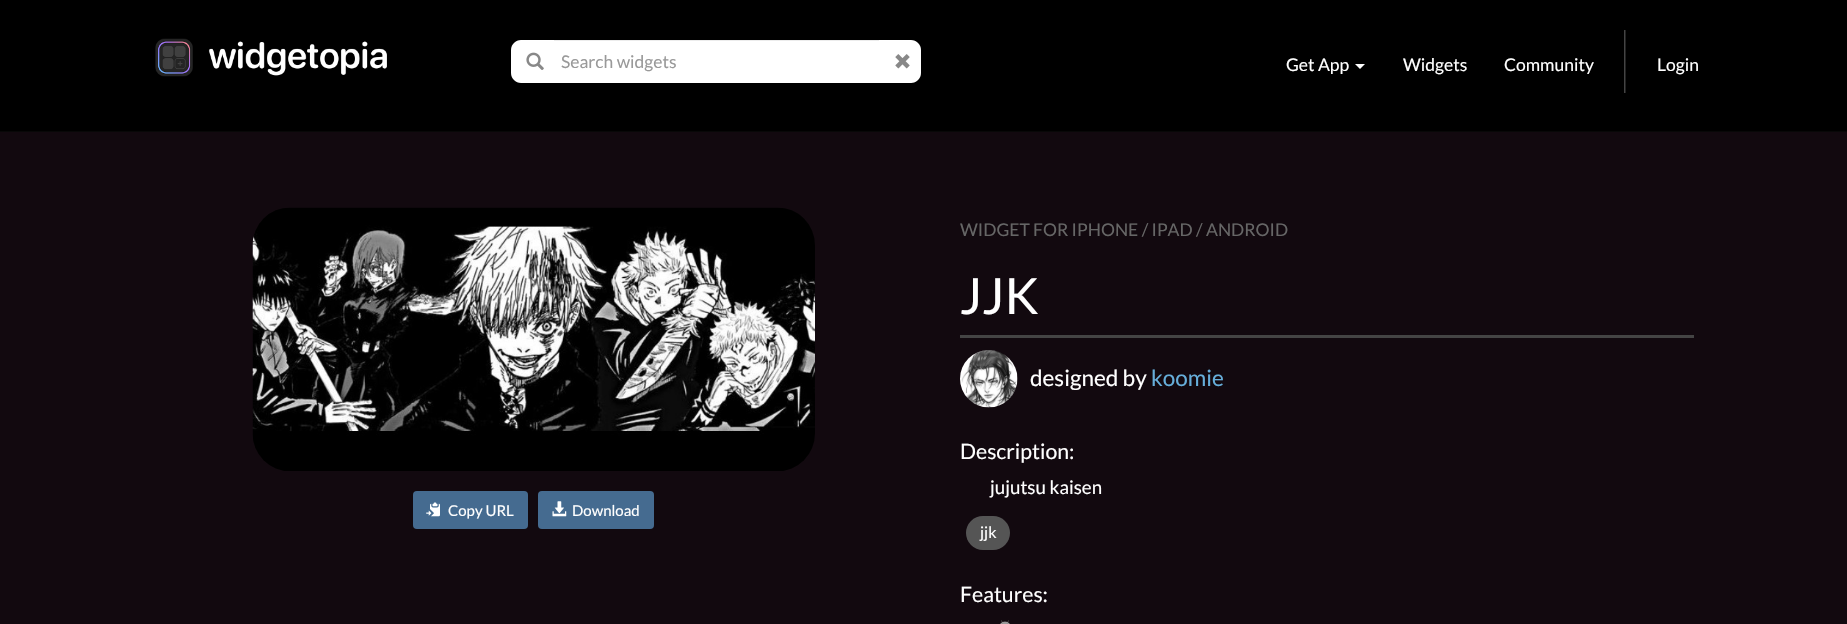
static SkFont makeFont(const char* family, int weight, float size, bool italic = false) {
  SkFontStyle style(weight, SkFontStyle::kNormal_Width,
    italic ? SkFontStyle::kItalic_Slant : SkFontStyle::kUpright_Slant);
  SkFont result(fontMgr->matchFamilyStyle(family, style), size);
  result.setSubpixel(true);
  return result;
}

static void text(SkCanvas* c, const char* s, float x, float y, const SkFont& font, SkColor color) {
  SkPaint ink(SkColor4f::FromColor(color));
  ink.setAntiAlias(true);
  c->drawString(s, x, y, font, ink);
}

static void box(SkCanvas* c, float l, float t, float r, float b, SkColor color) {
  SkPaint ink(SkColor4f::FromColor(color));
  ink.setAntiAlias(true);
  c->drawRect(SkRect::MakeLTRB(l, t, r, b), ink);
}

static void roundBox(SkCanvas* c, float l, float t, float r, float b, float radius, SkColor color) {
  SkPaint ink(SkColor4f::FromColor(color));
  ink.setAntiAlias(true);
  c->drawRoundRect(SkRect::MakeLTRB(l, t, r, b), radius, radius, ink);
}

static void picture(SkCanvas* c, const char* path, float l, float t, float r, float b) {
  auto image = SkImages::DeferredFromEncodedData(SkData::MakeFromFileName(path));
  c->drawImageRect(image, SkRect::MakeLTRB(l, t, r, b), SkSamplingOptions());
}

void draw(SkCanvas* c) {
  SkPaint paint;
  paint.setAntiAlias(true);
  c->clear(0xff12090f);
  box(c, 0, 0, 1847, 131, 0xff000000);
  box(c, 0, 131, 1847, 132, 0xff080808);
  picture(c, "img_01.png", 155, 38, 387, 77);
  paint.setColor(0xffffffff);
  c->drawPath(SkPathBuilder().moveTo(521, 40).lineTo(554, 40).lineTo(554, 83).lineTo(521, 83).cubicTo(515.5f, 83, 511, 78.5f, 511, 73).lineTo(511, 50).cubicTo(511, 44.5f, 515.5f, 40, 521, 40).close().detach(), paint);
  picture(c, "img_02.png", 526, 52, 544, 70);
  box(c, 554, 41, 879, 83, 0xffffffff);
  box(c, 554, 40, 879, 41, 0xffececec);
  SkFont face1 = makeFont("Lato", 400, 17.5f);
  text(c, "Search widgets", 561, 68, face1, 0xff999999);
  c->drawPath(SkPathBuilder().moveTo(879, 40).lineTo(911, 40).cubicTo(916.5f, 40, 921, 44.5f, 921, 50).lineTo(921, 73).cubicTo(921, 78.5f, 916.5f, 83, 911, 83).lineTo(879, 83).close().detach(), paint);
  picture(c, "img_03.png", 895, 54, 910, 69);
  text(c, "Get App", 1286, 71, face1, 0xffffffff);
  c->drawPath(SkPathBuilder().moveTo(1355, 64).lineTo(1365, 64).lineTo(1360, 69).close().detach(), paint);
  text(c, "Widgets", 1403, 71, face1, 0xffffffff);
  text(c, "Community", 1504, 71, face1, 0xffffffff);
  box(c, 1625, 30, 1626, 93, 0xff222222);
  box(c, 1624, 30, 1625, 93, 0xff444444);
  text(c, "Login", 1657, 71, face1, 0xffffffff);
  picture(c, "img_04.png", 252, 207, 815, 471);
  roundBox(c, 413, 491, 528, 529, 4, 0xff456b90);
  picture(c, "img_05.png", 426, 502, 440, 517);
  SkFont face2 = makeFont("Lato", 400, 15);
  text(c, "Copy URL", 448, 516, face2, 0xffffffff);
  roundBox(c, 538, 491, 654, 529, 4, 0xff456b90);
  picture(c, "img_06.png", 552, 501, 567, 517);
  text(c, "Download", 572, 516, face2, 0xffffffff);
  text(c, "WIDGET FOR IPHONE / IPAD / ANDROID", 960, 236, face1, 0xff666666);
  SkFont face3 = makeFont("Lato", 400, 50);
  text(c, "JJK", 960, 314, face3, 0xffffffff);
  box(c, 960, 335, 1694, 338, 0xff444444);
  picture(c, "img_07.png", 960, 350, 1018, 408);
  SkFont face4 = makeFont("Lato", 400, 22.5f);
  text(c, "designed by", 1030, 386, face4, 0xffffffff);
  text(c, "koomie", 1151, 386, face4, 0xff66aeda);
  SkFont face5 = makeFont("Lato", 400, 21.25f);
  text(c, "Description:", 960, 459, face5, 0xffffffff);
  SkFont face6 = makeFont("Lato", 400, 18.75f);
  text(c, "jujutsu kaisen", 990, 494, face6, 0xffffffff);
  roundBox(c, 966, 516, 1010, 550, 17, 0xff555555);
  SkFont face7 = makeFont("Lato", 400, 16);
  text(c, "jjk", 980, 538, face7, 0xffffffff);
  text(c, "Features:", 960, 602, face5, 0xffffffff);
  picture(c, "img_08.png", 1000, 620, 1010, 624);
}
